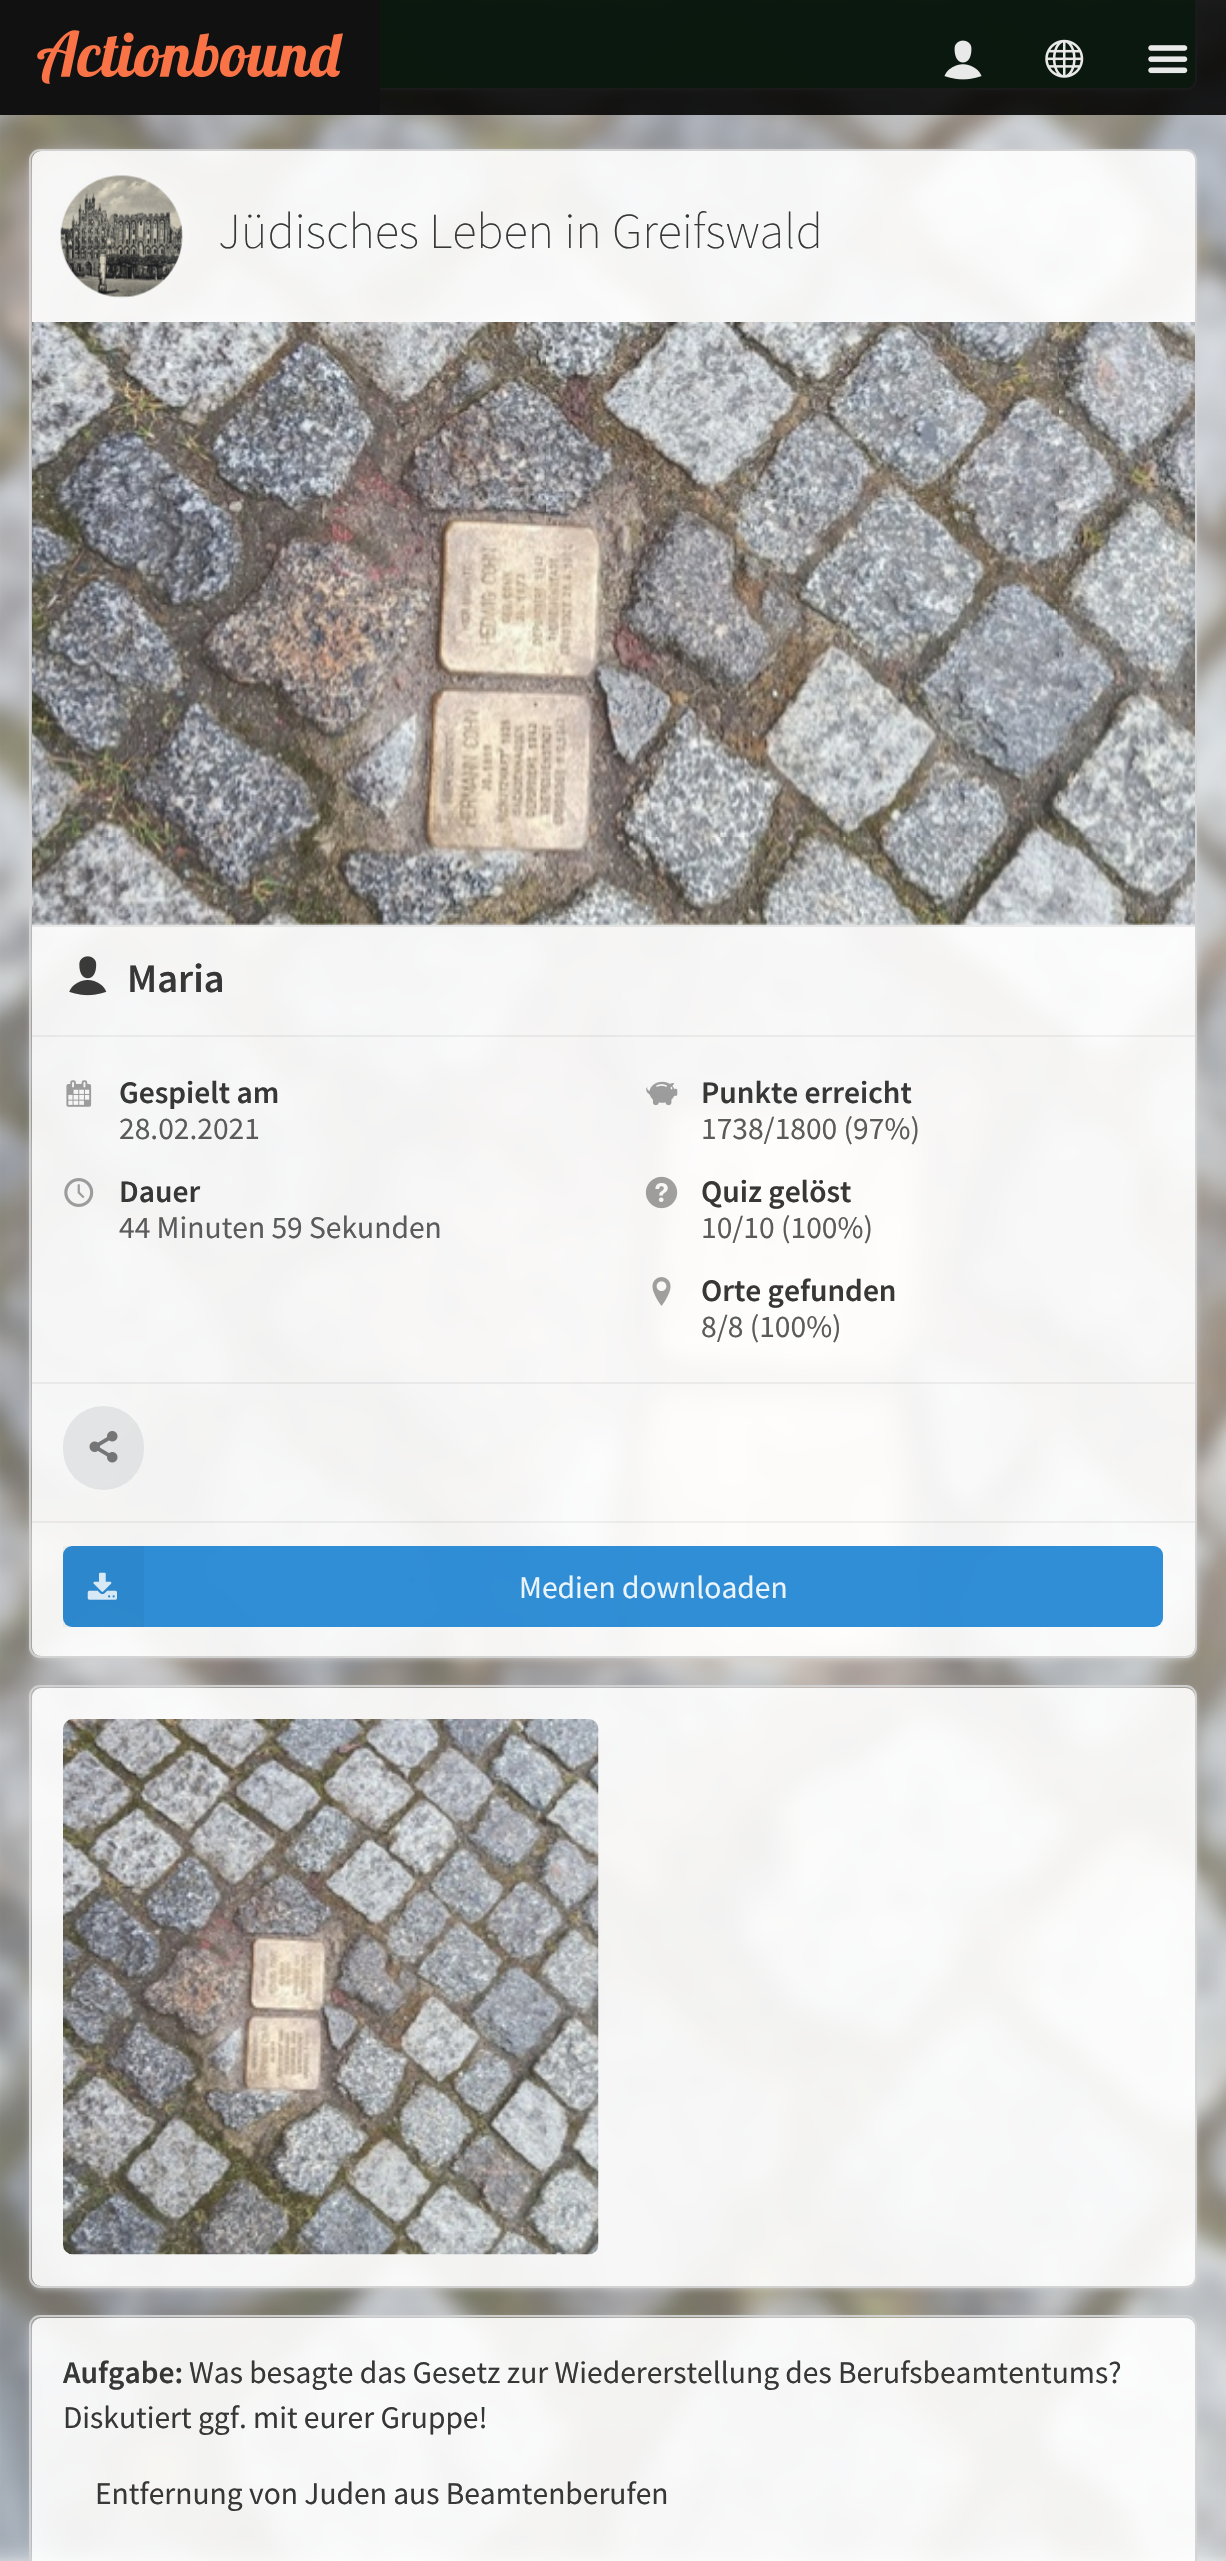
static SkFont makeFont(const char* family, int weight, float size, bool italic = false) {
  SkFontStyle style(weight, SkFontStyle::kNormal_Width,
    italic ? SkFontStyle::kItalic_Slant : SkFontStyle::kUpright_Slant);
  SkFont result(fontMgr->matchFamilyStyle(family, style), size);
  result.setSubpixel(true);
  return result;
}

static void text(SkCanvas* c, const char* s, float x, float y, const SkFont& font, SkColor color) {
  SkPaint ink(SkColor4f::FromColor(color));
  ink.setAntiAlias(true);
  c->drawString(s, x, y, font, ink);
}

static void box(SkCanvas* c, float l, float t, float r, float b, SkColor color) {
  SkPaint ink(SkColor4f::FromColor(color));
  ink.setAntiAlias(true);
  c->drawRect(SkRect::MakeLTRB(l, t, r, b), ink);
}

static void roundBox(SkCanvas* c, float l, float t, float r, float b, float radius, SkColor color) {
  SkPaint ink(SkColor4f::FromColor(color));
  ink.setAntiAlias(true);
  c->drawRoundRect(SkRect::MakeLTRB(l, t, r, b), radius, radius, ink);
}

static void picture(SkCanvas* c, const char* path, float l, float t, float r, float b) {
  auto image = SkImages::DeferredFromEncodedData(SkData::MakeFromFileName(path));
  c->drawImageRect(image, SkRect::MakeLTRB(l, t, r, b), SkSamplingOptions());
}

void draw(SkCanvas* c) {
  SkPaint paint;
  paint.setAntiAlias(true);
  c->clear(0xfff9f9f9);
  picture(c, "img_05.png", 0, 0, 1226, 2561);
  paint.setStyle(SkPaint::kStroke_Style);
  paint.setStrokeWidth(2);
  paint.setColor(0xe6d4d4d5);
  c->drawRoundRect(SkRect::MakeLTRB(30, -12, 1196, 89), 10, 10, paint);
  c->save();
  c->clipPath(SkPathBuilder(SkPathFillType::kEvenOdd).moveTo(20, 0).lineTo(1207, 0).lineTo(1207, 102).lineTo(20, 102).close().moveTo(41, -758).lineTo(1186, -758).cubicTo(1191, -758, 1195, -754, 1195, -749).lineTo(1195, 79).cubicTo(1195, 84, 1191, 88, 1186, 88).lineTo(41, 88).cubicTo(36, 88, 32, 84, 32, 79).lineTo(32, -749).cubicTo(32, -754, 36, -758, 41, -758).close().detach(), true);
  paint.setStyle(SkPaint::kFill_Style);
  paint.setMaskFilter(SkMaskFilter::MakeBlur(kNormal_SkBlurStyle, 3.5f));
  c->drawRoundRect(SkRect::MakeLTRB(32, -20, 1195, 90), 9, 9, paint);
  paint.setMaskFilter(nullptr);
  c->restore();
  roundBox(c, 32, -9, 1195, 88, 9, 0xe649c46f);
  box(c, 380, 0, 1226, 115, 0xe0000000);
  box(c, 0, 0, 380, 115, 0xff111111);
  picture(c, "img_01.png", 37, 30, 343, 84);
  picture(c, "img_02.png", 944, 40, 982, 80);
  picture(c, "img_03.png", 1045, 39, 1084, 78);
  picture(c, "img_04.png", 1148, 45, 1188, 74);
  paint.setStyle(SkPaint::kStroke_Style);
  c->drawRoundRect(SkRect::MakeLTRB(30, 150, 1196, 1657), 10, 10, paint);
  c->save();
  c->clipPath(SkPathBuilder(SkPathFillType::kEvenOdd).moveTo(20, 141).lineTo(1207, 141).lineTo(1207, 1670).lineTo(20, 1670).close().moveTo(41, 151).lineTo(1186, 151).cubicTo(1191, 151, 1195, 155, 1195, 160).lineTo(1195, 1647).cubicTo(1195, 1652, 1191, 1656, 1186, 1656).lineTo(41, 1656).cubicTo(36, 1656, 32, 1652, 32, 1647).lineTo(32, 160).cubicTo(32, 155, 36, 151, 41, 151).close().detach(), true);
  paint.setStyle(SkPaint::kFill_Style);
  paint.setMaskFilter(SkMaskFilter::MakeBlur(kNormal_SkBlurStyle, 3.5f));
  c->drawRoundRect(SkRect::MakeLTRB(32, 153, 1195, 1658), 9, 9, paint);
  paint.setMaskFilter(nullptr);
  c->restore();
  roundBox(c, 32, 151, 1195, 1656, 9, 0xe6ffffff);
  picture(c, "img_06.png", 60, 175, 183, 298);
  SkFont face1 = makeFont("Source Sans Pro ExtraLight", 200, 50.4f);
  text(c, "Jüdisches Leben in Greifswald", 218, 248, face1, 0xff373737);
  box(c, 32, 322, 1195, 925, 0x0d000000);
  picture(c, "img_07.png", 32, 322, 1195, 925);
  box(c, 32, 925, 1195, 927, 0x17222426);
  picture(c, "img_08.png", 69, 956, 107, 996);
  SkFont face2 = makeFont("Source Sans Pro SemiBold", 600, 40.5f);
  text(c, "Maria", 127, 992, face2, 0xff373737);
  box(c, 32, 1035, 1195, 1037, 0x0d000000);
  picture(c, "img_09.png", 66, 1080, 92, 1107);
  SkFont face3 = makeFont("Source Sans Pro SemiBold", 600, 31.5f);
  text(c, "Gespielt am", 119, 1103, face3, 0xff373737);
  SkFont face4 = makeFont("Source Sans Pro", 400, 31.5f);
  text(c, "28.02.2021", 119, 1139, face4, 0xff5b5b5b);
  picture(c, "img_10.png", 64, 1178, 94, 1207);
  text(c, "Dauer", 119, 1202, face3, 0xff373737);
  text(c, "44 Minuten 59 Sekunden", 119, 1238, face4, 0xff5b5b5b);
  picture(c, "img_11.png", 646, 1081, 678, 1106);
  text(c, "Punkte erreicht", 701, 1103, face3, 0xff373737);
  text(c, "1738/1800 (97%)", 701, 1139, face4, 0xff5b5b5b);
  picture(c, "img_12.png", 645, 1176, 678, 1209);
  text(c, "Quiz gelöst", 701, 1202, face3, 0xff373737);
  text(c, "10/10 (100%)", 701, 1238, face4, 0xff5b5b5b);
  picture(c, "img_13.png", 652, 1277, 671, 1306);
  text(c, "Orte gefunden", 701, 1301, face3, 0xff373737);
  text(c, "8/8 (100%)", 701, 1337, face4, 0xff5b5b5b);
  box(c, 32, 1382, 1195, 1384, 0x0d000000);
  roundBox(c, 63, 1406, 144, 1490, 40.5f, 0xe6e0e1e2);
  picture(c, "img_14.png", 89, 1431, 118, 1463);
  box(c, 32, 1521, 1195, 1523, 0x0d000000);
  roundBox(c, 63, 1546, 1163, 1627, 9, 0xe61982d1);
  box(c, 63, 1546, 144, 1627, 0x0a000000);
  picture(c, "img_15.png", 87, 1572, 117, 1600);
  text(c, "Medien downloaden", 519, 1598, face4, 0xffeaf4fb);
  paint.setStyle(SkPaint::kStroke_Style);
  c->drawRoundRect(SkRect::MakeLTRB(30, 1686, 1196, 2287), 10, 10, paint);
  c->save();
  c->clipPath(SkPathBuilder(SkPathFillType::kEvenOdd).moveTo(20, 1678).lineTo(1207, 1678).lineTo(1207, 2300).lineTo(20, 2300).close().moveTo(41, 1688).lineTo(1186, 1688).cubicTo(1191, 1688, 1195, 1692, 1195, 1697).lineTo(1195, 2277).cubicTo(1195, 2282, 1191, 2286, 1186, 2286).lineTo(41, 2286).cubicTo(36, 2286, 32, 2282, 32, 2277).lineTo(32, 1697).cubicTo(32, 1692, 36, 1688, 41, 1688).close().detach(), true);
  paint.setStyle(SkPaint::kFill_Style);
  paint.setMaskFilter(SkMaskFilter::MakeBlur(kNormal_SkBlurStyle, 3.5f));
  c->drawRoundRect(SkRect::MakeLTRB(32, 1690, 1195, 2288), 9, 9, paint);
  paint.setMaskFilter(nullptr);
  c->restore();
  roundBox(c, 32, 1688, 1195, 2286, 9, 0xe6ffffff);
  picture(c, "img_16.png", 63, 1719, 599, 2255);
  paint.setStyle(SkPaint::kStroke_Style);
  c->drawRoundRect(SkRect::MakeLTRB(30, 2316, 1196, 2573), 10, 10, paint);
  c->save();
  c->clipPath(SkPathBuilder(SkPathFillType::kEvenOdd).moveTo(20, 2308).lineTo(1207, 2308).lineTo(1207, 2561).lineTo(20, 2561).close().moveTo(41, 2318).lineTo(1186, 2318).cubicTo(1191, 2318, 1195, 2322, 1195, 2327).lineTo(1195, 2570).cubicTo(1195, 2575, 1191, 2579, 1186, 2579).lineTo(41, 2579).cubicTo(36, 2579, 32, 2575, 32, 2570).lineTo(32, 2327).cubicTo(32, 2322, 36, 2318, 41, 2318).close().detach(), true);
  paint.setStyle(SkPaint::kFill_Style);
  paint.setMaskFilter(SkMaskFilter::MakeBlur(kNormal_SkBlurStyle, 3.5f));
  c->drawRoundRect(SkRect::MakeLTRB(32, 2320, 1195, 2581), 9, 9, paint);
  paint.setMaskFilter(nullptr);
  c->restore();
  roundBox(c, 32, 2318, 1195, 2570, 9, 0xe6ffffff);
  text(c, "Aufgabe:", 63, 2383, face3, 0xff373737);
  text(c, "Was besagte das Gesetz zur Wiedererstellung des Berufsbeamtentums?", 189, 2383, face4, 0xff373737);
  text(c, "Diskutiert ggf. mit eurer Gruppe!", 63, 2428, face4, 0xff373737);
  text(c, "Entfernung von Juden aus Beamtenberufen", 95, 2504, face4, 0xff373737);
}
